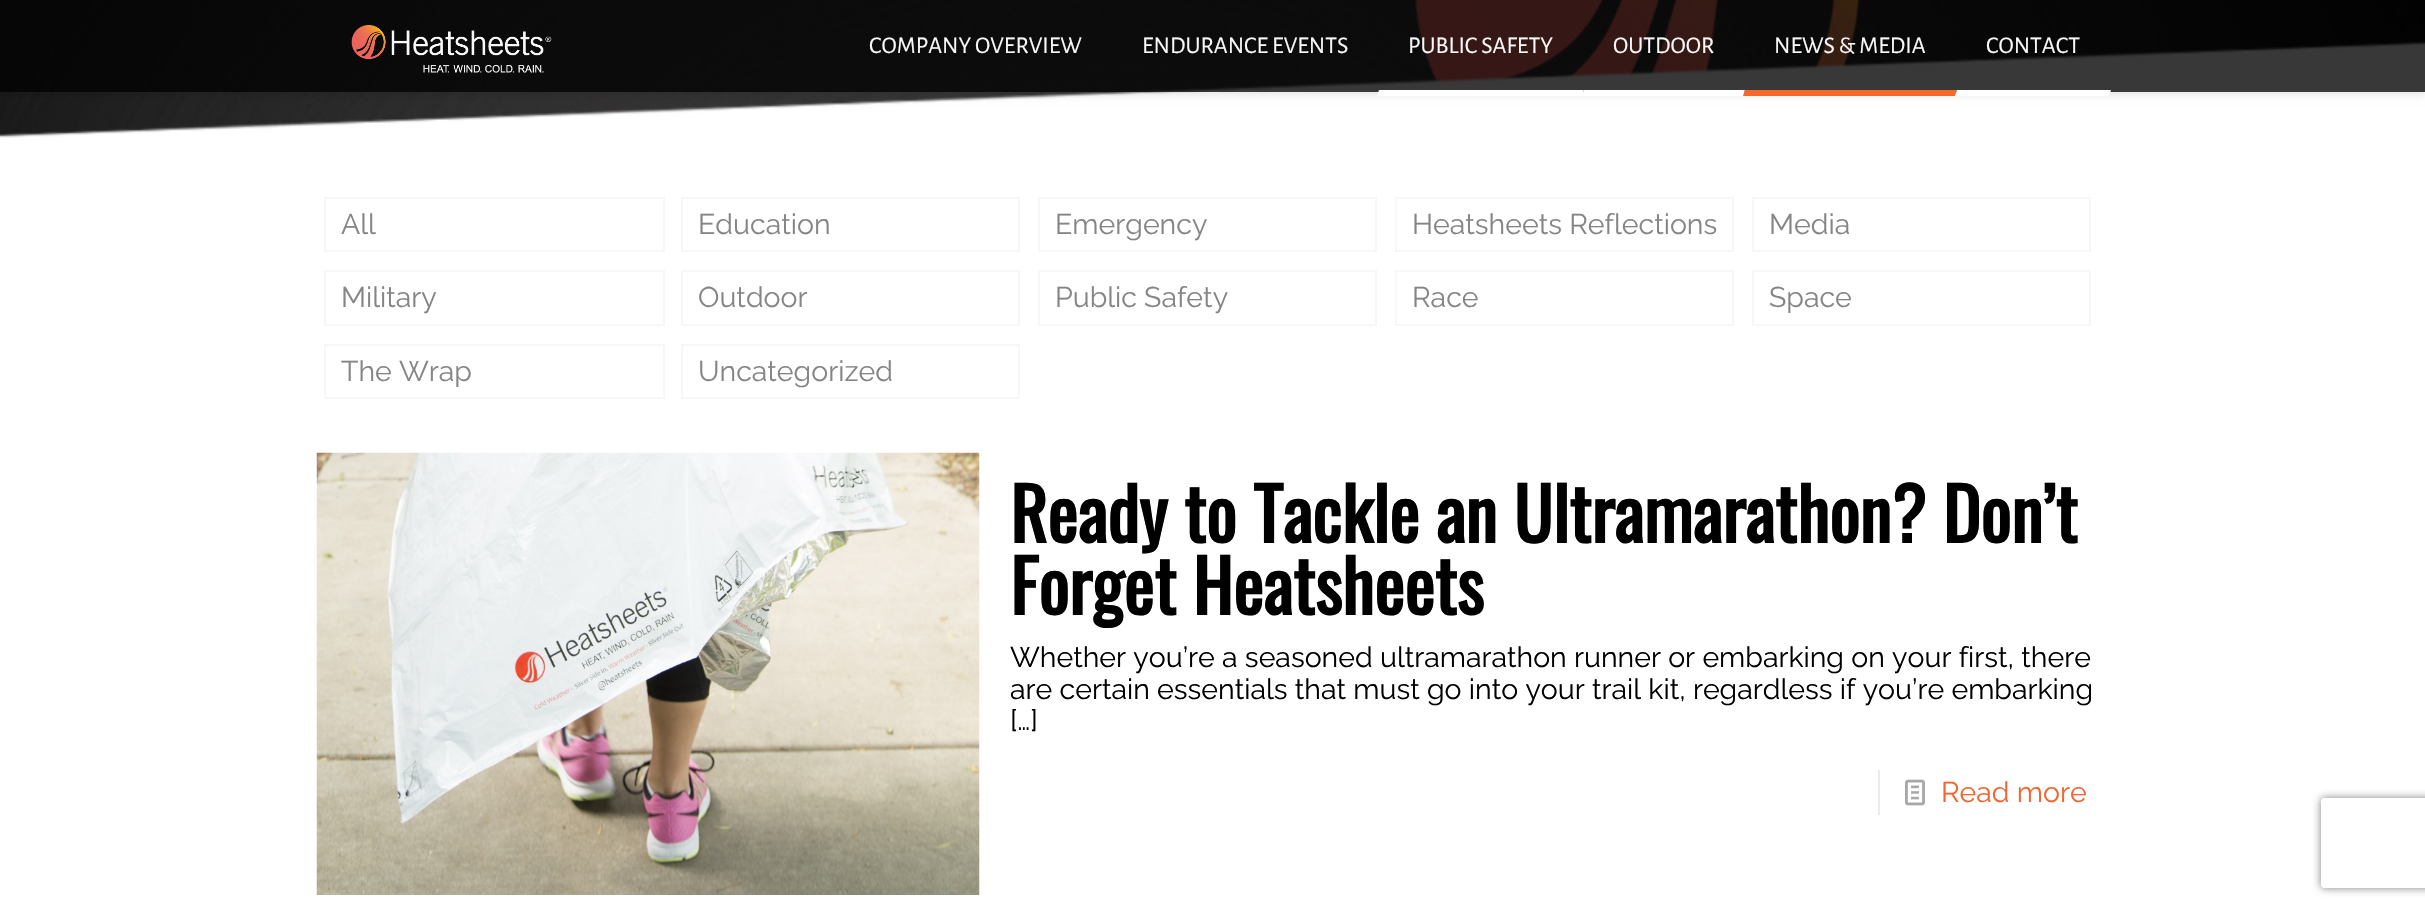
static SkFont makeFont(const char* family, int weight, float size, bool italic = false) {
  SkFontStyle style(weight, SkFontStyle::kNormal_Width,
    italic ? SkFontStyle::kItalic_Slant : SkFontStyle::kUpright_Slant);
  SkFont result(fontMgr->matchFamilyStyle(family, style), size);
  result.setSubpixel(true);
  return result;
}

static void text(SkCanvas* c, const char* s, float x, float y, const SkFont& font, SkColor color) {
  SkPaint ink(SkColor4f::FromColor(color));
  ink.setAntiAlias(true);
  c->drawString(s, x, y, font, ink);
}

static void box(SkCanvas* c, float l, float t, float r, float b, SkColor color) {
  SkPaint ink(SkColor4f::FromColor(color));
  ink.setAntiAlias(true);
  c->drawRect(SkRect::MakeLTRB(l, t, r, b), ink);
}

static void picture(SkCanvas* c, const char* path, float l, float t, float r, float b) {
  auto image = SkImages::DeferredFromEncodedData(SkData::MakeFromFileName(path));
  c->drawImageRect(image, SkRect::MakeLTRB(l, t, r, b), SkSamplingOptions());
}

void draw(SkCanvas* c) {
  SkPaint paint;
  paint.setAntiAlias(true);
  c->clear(0xffffffff);
  picture(c, "img_01.png", 0, 0, 2425, 138);
  c->save();
  c->clipPath(SkPathBuilder(SkPathFillType::kEvenOdd).moveTo(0, 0).lineTo(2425, 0).lineTo(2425, 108).lineTo(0, 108).close().moveTo(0, 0).lineTo(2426, 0).lineTo(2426, 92).lineTo(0, 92).close().detach(), true);
  paint.setColor(0x1a000000);
  paint.setMaskFilter(SkMaskFilter::MakeBlur(kNormal_SkBlurStyle, 4));
  c->drawRect(SkRect::MakeLTRB(0, 3, 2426, 95), paint);
  paint.setMaskFilter(nullptr);
  c->restore();
  box(c, 0, 0, 2425, 92, 0xc7000000);
  picture(c, "img_02.png", 351, 25, 552, 73);
  SkFont face1 = makeFont("Alegreya Sans", 400, 24);
  text(c, "COMPANY OVERVIEW", 869, 53, face1, 0xfff8f8f8);
  text(c, "ENDURANCE EVENTS", 1142, 53, face1, 0xfff8f8f8);
  text(c, "PUBLIC SAFETY", 1408, 53, face1, 0xfff8f8f8);
  paint.setColor(0xffffffff);
  c->drawPath(SkPathBuilder().moveTo(1379, 90).lineTo(1584, 90).lineTo(1582, 96).lineTo(1377, 96).close().detach(), paint);
  text(c, "OUTDOOR", 1613, 53, face1, 0xfff8f8f8);
  c->drawPath(SkPathBuilder().moveTo(1584, 90).lineTo(1745, 90).lineTo(1743, 96).lineTo(1582, 96).close().detach(), paint);
  text(c, "NEWS & MEDIA", 1774, 53, face1, 0xfff8f8f8);
  paint.setColor(0xfff4692b);
  c->drawPath(SkPathBuilder().moveTo(1745, 90).lineTo(1957, 90).lineTo(1955, 96).lineTo(1743, 96).close().detach(), paint);
  text(c, "CONTACT", 1986, 53, face1, 0xfff8f8f8);
  paint.setColor(0xffffffff);
  c->drawPath(SkPathBuilder().moveTo(1957, 90).lineTo(2111, 90).lineTo(2109, 96).lineTo(1955, 96).close().detach(), paint);
  paint.setStyle(SkPaint::kStroke_Style);
  paint.setStrokeWidth(2);
  paint.setColor(0xfff7f7f7);
  c->drawRect(SkRect::MakeLTRB(325, 198, 664, 251), paint);
  SkFont face2 = makeFont("Raleway", 400, 28.5f);
  text(c, "All", 341, 234, face2, 0xff858585);
  c->drawRect(SkRect::MakeLTRB(682, 198, 1019, 251), paint);
  text(c, "Education", 698, 234, face2, 0xff858585);
  c->drawRect(SkRect::MakeLTRB(1039, 198, 1376, 251), paint);
  text(c, "Emergency", 1055, 234, face2, 0xff858585);
  c->drawRect(SkRect::MakeLTRB(1396, 198, 1733, 251), paint);
  text(c, "Heatsheets Reflections", 1412, 234, face2, 0xff858585);
  c->drawRect(SkRect::MakeLTRB(1753, 198, 2090, 251), paint);
  text(c, "Media", 1769, 234, face2, 0xff858585);
  c->drawRect(SkRect::MakeLTRB(325, 271, 664, 325), paint);
  text(c, "Military", 341, 307, face2, 0xff858585);
  c->drawRect(SkRect::MakeLTRB(682, 271, 1019, 325), paint);
  text(c, "Outdoor", 698, 307, face2, 0xff858585);
  c->drawRect(SkRect::MakeLTRB(1039, 271, 1376, 325), paint);
  text(c, "Public Safety", 1055, 307, face2, 0xff858585);
  c->drawRect(SkRect::MakeLTRB(1396, 271, 1733, 325), paint);
  text(c, "Race", 1412, 307, face2, 0xff858585);
  c->drawRect(SkRect::MakeLTRB(1753, 271, 2090, 325), paint);
  text(c, "Space", 1769, 307, face2, 0xff858585);
  c->drawRect(SkRect::MakeLTRB(325, 345, 664, 398), paint);
  text(c, "The Wrap", 341, 381, face2, 0xff858585);
  c->drawRect(SkRect::MakeLTRB(682, 345, 1019, 398), paint);
  text(c, "Uncategorized", 698, 381, face2, 0xff858585);
  picture(c, "img_03.png", 316, 452, 980, 895);
  SkFont face3 = makeFont("Oswald", 700, 72);
  text(c, "Ready to Tackle an Ultramarathon? Don’t", 1010, 543, face3, 0xff000000);
  text(c, "Forget Heatsheets", 1010, 615, face3, 0xff000000);
  text(c, "Whether you’re a seasoned ultramarathon runner or embarking on your first, there", 1010, 667, face2, 0xff000000);
  text(c, "are certain essentials that must go into your trail kit, regardless if you’re embarking", 1010, 699, face2, 0xff000000);
  text(c, "[…]", 1010, 730, face2, 0xff000000);
  box(c, 1878, 770, 1880, 815, 0xffebebeb);
  picture(c, "img_04.png", 1905, 779, 1925, 806);
  text(c, "Read more", 1941, 802, face2, 0xfff26531);
  c->save();
  c->clipPath(SkPathBuilder(SkPathFillType::kEvenOdd).moveTo(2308, 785).lineTo(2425, 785).lineTo(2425, 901).lineTo(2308, 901).close().moveTo(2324, 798).lineTo(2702, 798).cubicTo(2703.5f, 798, 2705, 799.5f, 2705, 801).lineTo(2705, 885).cubicTo(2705, 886.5f, 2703.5f, 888, 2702, 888).lineTo(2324, 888).cubicTo(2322.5f, 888, 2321, 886.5f, 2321, 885).lineTo(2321, 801).cubicTo(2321, 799.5f, 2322.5f, 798, 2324, 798).close().detach(), true);
  paint.setStyle(SkPaint::kFill_Style);
  paint.setColor(0xff808080);
  paint.setMaskFilter(SkMaskFilter::MakeBlur(kNormal_SkBlurStyle, 4));
  c->drawRoundRect(SkRect::MakeLTRB(2321, 798, 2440, 888), 3, 3, paint);
  paint.setMaskFilter(nullptr);
  c->restore();
}
